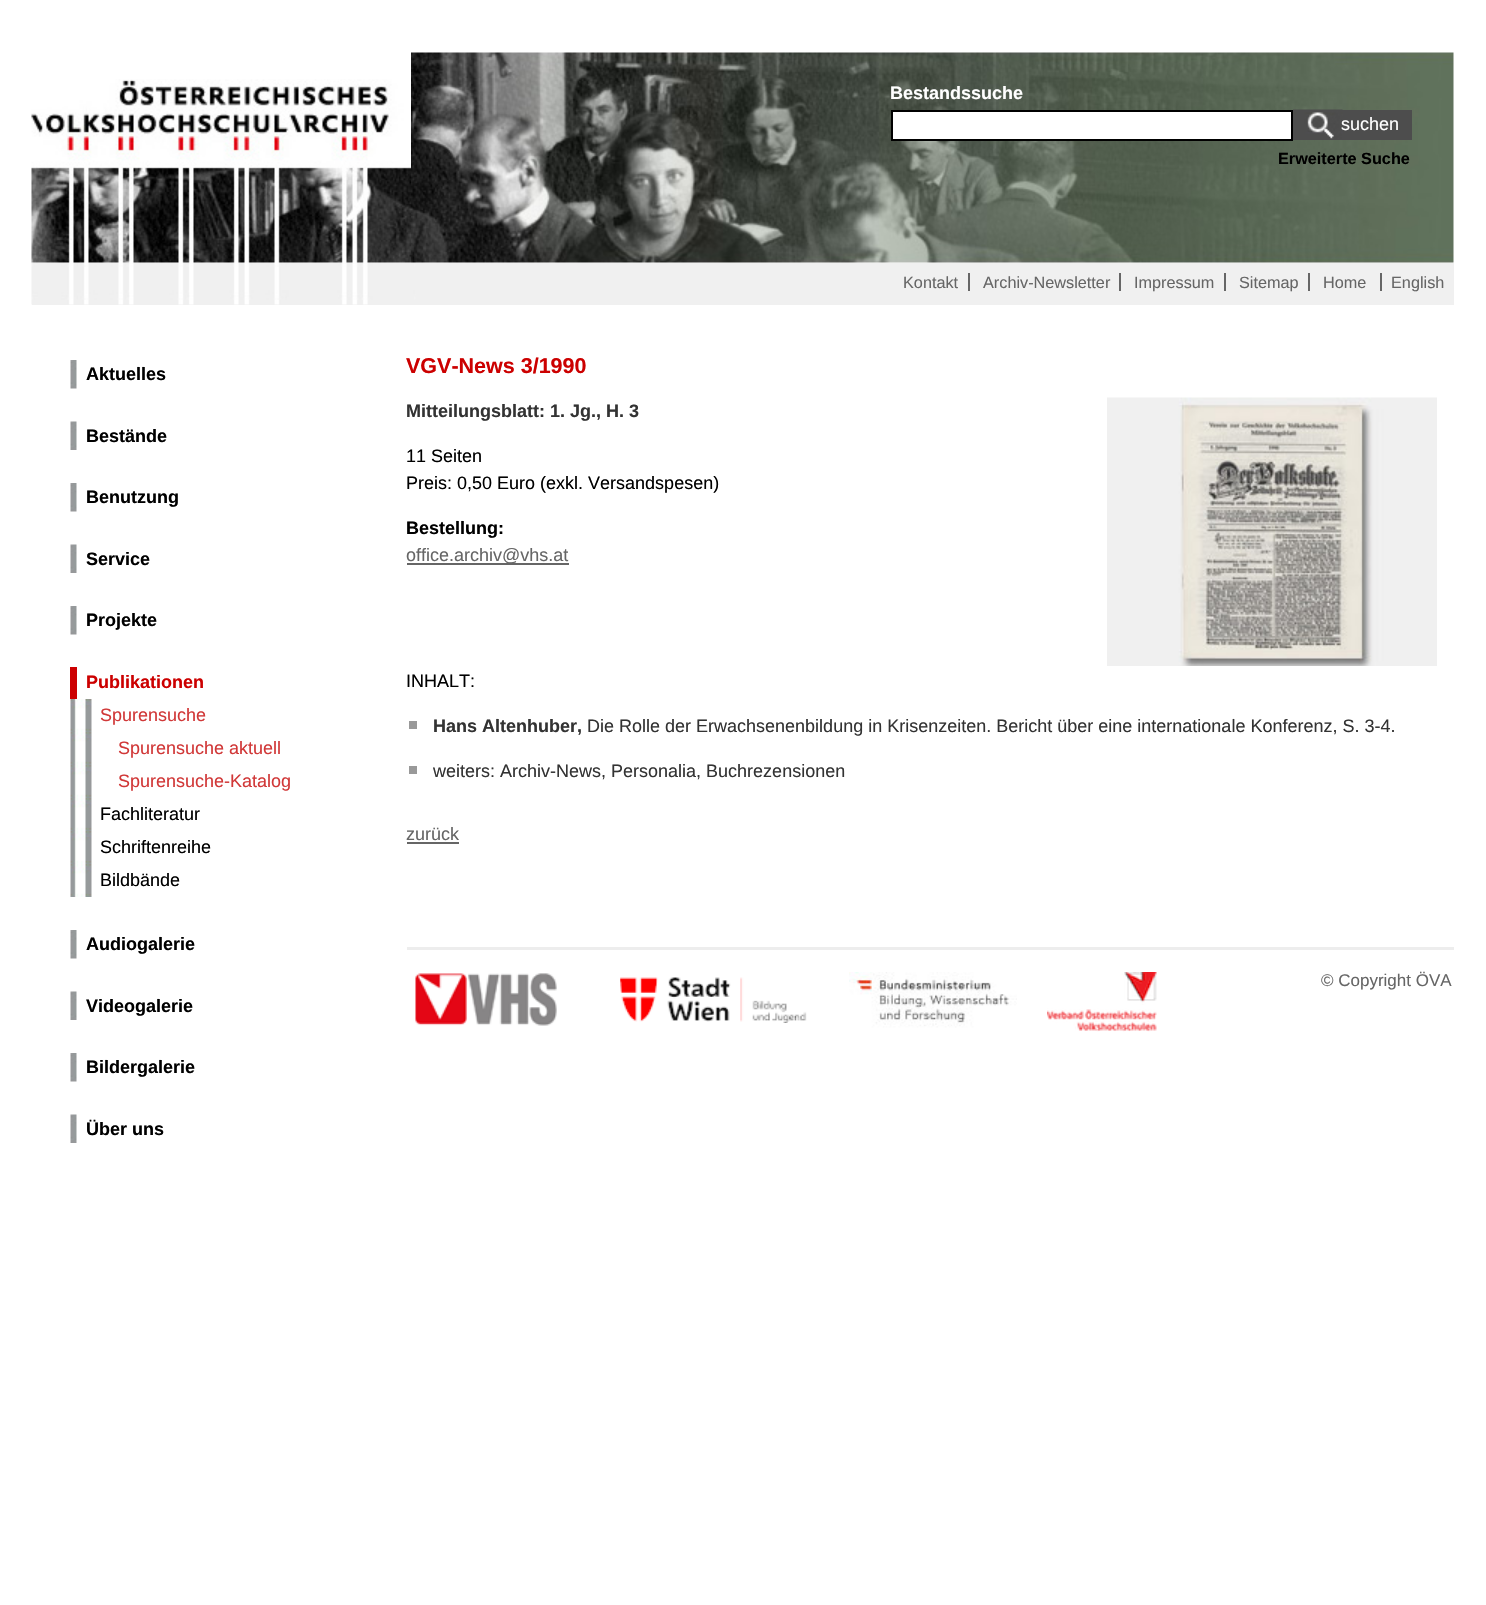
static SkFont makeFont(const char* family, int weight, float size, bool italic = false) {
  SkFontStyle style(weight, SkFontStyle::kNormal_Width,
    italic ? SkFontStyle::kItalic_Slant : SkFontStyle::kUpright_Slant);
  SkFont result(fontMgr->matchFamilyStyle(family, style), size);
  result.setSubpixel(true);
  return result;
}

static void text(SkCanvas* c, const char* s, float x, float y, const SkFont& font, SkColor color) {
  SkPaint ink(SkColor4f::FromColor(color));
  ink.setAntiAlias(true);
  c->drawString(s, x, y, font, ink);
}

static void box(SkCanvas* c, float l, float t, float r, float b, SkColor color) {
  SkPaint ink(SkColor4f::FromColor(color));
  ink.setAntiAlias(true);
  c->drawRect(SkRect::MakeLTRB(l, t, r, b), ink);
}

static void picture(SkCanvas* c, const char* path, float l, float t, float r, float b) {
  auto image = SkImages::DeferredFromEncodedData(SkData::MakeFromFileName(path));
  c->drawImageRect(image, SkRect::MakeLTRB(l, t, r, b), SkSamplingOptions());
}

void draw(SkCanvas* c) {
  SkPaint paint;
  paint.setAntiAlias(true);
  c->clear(0xffffffff);
  box(c, 32, 263, 1454, 305, 0xfff0f0f0);
  picture(c, "img_04.png", 31, 262, 416, 305);
  box(c, 32, 262, 411, 263, 0xffffffff);
  picture(c, "img_01.png", 31, 79, 411, 263);
  picture(c, "img_02.png", 411, 52, 1454, 263);
  SkFont face1 = makeFont("Liberation Sans", 700, 18);
  text(c, "Bestandssuche", 890, 99, face1, 0xffffffff);
  paint.setColor(0xffffffff);
  c->drawRect(SkRect::MakeLTRB(892, 111, 1292, 140), paint);
  paint.setStyle(SkPaint::kStroke_Style);
  paint.setStrokeWidth(2);
  paint.setColor(0xff000000);
  c->drawRect(SkRect::MakeLTRB(892, 111, 1292, 140), paint);
  box(c, 1293, 110, 1412, 140, 0xff4d4d4d);
  picture(c, "img_03.png", 1293, 109, 1343, 139);
  SkFont face2 = makeFont("Liberation Sans", 400, 18);
  text(c, "suchen", 1341, 130, face2, 0xffffffff);
  SkFont face3 = makeFont("Liberation Sans", 700, 16.25f);
  text(c, "Erweiterte Suche", 1278, 164, face3, 0xff000000);
  SkFont face4 = makeFont("Liberation Sans", 400, 16.25f);
  text(c, "Kontakt", 903, 288, face4, 0xff666666);
  box(c, 968, 273, 970, 291, 0xff666666);
  text(c, "Archiv-Newsletter", 983, 288, face4, 0xff666666);
  box(c, 1119, 273, 1121, 291, 0xff666666);
  text(c, "Impressum", 1134, 288, face4, 0xff666666);
  box(c, 1224, 273, 1226, 291, 0xff666666);
  text(c, "Sitemap", 1239, 288, face4, 0xff666666);
  box(c, 1308, 273, 1310, 291, 0xff666666);
  text(c, "Home", 1323, 288, face4, 0xff666666);
  text(c, "English", 1391, 288, face4, 0xff666666);
  box(c, 1380, 273, 1382, 291, 0xff666666);
  picture(c, "img_05.png", 70, 360, 77, 389);
  text(c, "Aktuelles", 86, 380, face1, 0xff000000);
  picture(c, "img_06.png", 70, 421, 77, 450);
  text(c, "Bestände", 86, 442, face1, 0xff000000);
  picture(c, "img_05.png", 70, 483, 77, 512);
  text(c, "Benutzung", 86, 503, face1, 0xff000000);
  picture(c, "img_06.png", 70, 544, 77, 573);
  text(c, "Service", 86, 565, face1, 0xff000000);
  picture(c, "img_05.png", 70, 606, 77, 635);
  text(c, "Projekte", 86, 626, face1, 0xff000000);
  box(c, 70, 667, 77, 699, 0xffcc0001);
  text(c, "Publikationen", 86, 688, face1, 0xffcc0000);
  picture(c, "img_07.png", 70, 699, 92, 732);
  text(c, "Spurensuche", 100, 721, face2, 0xffd13838);
  picture(c, "img_07.png", 70, 732, 92, 765);
  text(c, "Spurensuche aktuell", 118, 754, face2, 0xffd13838);
  picture(c, "img_07.png", 70, 765, 92, 798);
  text(c, "Spurensuche-Katalog", 118, 787, face2, 0xffd13838);
  picture(c, "img_07.png", 70, 798, 92, 831);
  text(c, "Fachliteratur", 100, 820, face2, 0xff000000);
  picture(c, "img_07.png", 70, 831, 92, 864);
  text(c, "Schriftenreihe", 100, 853, face2, 0xff000000);
  picture(c, "img_07.png", 70, 864, 92, 897);
  text(c, "Bildbände", 100, 886, face2, 0xff000000);
  picture(c, "img_05.png", 70, 930, 77, 959);
  text(c, "Audiogalerie", 86, 950, face1, 0xff000000);
  picture(c, "img_06.png", 70, 991, 77, 1020);
  text(c, "Videogalerie", 86, 1012, face1, 0xff000000);
  picture(c, "img_05.png", 70, 1053, 77, 1082);
  text(c, "Bildergalerie", 86, 1073, face1, 0xff000000);
  picture(c, "img_06.png", 70, 1114, 77, 1143);
  text(c, "Über uns", 86, 1135, face1, 0xff000000);
  box(c, 407, 947, 1454, 950, 0xffededed);
  SkFont face5 = makeFont("Liberation Sans", 700, 21.5f);
  text(c, "VGV-News 3/1990", 406, 373, face5, 0xffcc0000);
  picture(c, "img_08.png", 1107, 397, 1437, 666);
  text(c, "Mitteilungsblatt: 1. Jg., H. 3", 406, 417, face1, 0xff333333);
  text(c, "11 Seiten", 406, 462, face2, 0xff000000);
  text(c, "Preis: 0,50 Euro (exkl. Versandspesen)", 406, 489, face2, 0xff000000);
  text(c, "Bestellung:", 406, 534, face1, 0xff000000);
  box(c, 407, 563, 569, 565, 0xff666666);
  text(c, "office.archiv@vhs.at", 406, 561, face2, 0xff666666);
  text(c, "INHALT:", 406, 687, face2, 0xff000000);
  box(c, 409, 721, 417, 729, 0xff999999);
  text(c, "Hans Altenhuber,", 433, 732, face1, 0xff333333);
  text(c, "Die Rolle der Erwachsenenbildung in Krisenzeiten. Bericht über eine internationale Konferenz, S. 3-4.", 587, 732, face2, 0xff333333);
  box(c, 409, 766, 417, 774, 0xff999999);
  text(c, "weiters: Archiv-News, Personalia, Buchrezensionen", 433, 777, face2, 0xff333333);
  text(c, "zurück", 406, 840, face2, 0xff666666);
  box(c, 407, 842, 459, 844, 0xff666666);
  picture(c, "img_09.png", 415, 973, 557, 1026);
  picture(c, "img_10.png", 620, 977, 807, 1023);
  picture(c, "img_11.png", 849, 972, 1017, 1028);
  picture(c, "img_12.png", 1047, 972, 1157, 1032);
  SkFont face6 = makeFont("Liberation Sans", 400, 17);
  text(c, "© Copyright ÖVA", 1321, 986, face6, 0xff666666);
}
